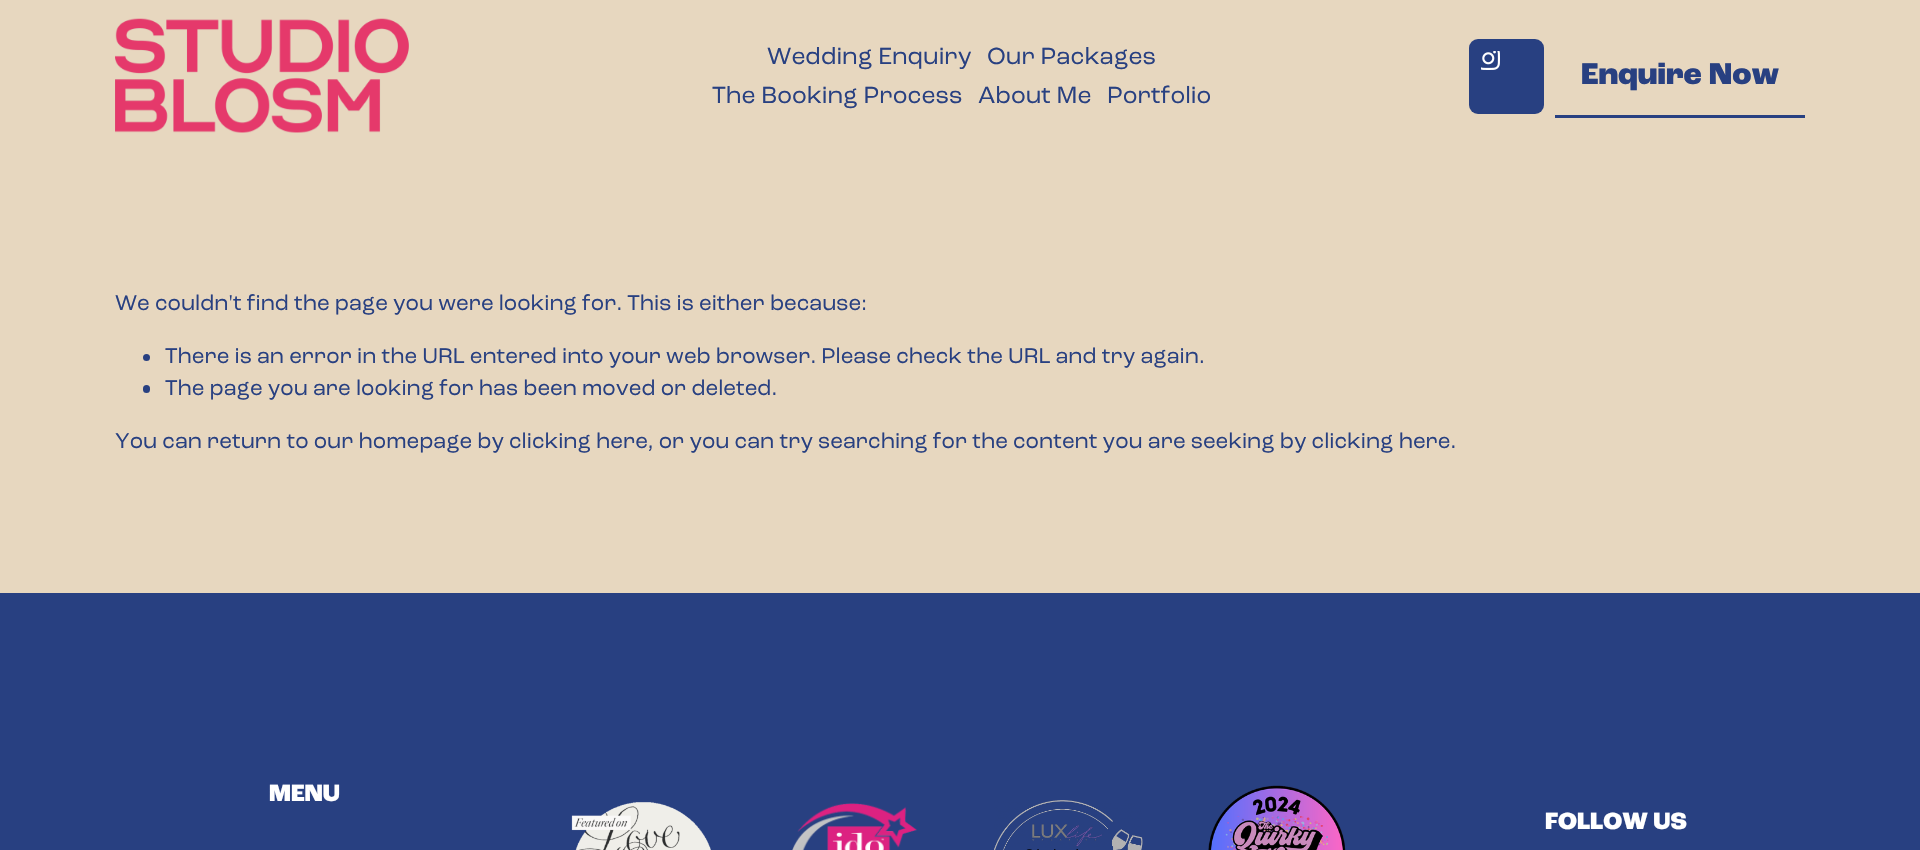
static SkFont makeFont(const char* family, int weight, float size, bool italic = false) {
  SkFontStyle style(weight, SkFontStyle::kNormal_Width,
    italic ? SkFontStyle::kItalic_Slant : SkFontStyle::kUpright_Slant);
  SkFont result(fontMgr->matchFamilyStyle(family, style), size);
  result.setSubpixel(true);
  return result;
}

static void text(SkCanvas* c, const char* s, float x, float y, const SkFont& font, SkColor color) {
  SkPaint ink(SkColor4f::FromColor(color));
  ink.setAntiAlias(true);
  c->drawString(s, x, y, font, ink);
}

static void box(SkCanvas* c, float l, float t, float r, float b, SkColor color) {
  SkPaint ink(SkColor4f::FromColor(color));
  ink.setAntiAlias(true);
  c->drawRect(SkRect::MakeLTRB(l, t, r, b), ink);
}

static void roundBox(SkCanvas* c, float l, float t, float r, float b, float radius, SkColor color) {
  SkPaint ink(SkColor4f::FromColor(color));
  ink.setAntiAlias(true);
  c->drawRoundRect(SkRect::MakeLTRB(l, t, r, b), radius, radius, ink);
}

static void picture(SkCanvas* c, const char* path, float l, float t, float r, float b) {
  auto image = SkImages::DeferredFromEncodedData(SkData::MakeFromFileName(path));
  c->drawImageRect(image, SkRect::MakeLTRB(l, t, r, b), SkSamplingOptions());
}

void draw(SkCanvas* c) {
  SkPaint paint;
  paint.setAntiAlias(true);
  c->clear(0xffe7d7bf);
  picture(c, "img_01.png", 115, 18, 409, 133);
  SkFont face1 = makeFont("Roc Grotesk", 400, 24.6f);
  text(c, "Wedding Enquiry", 767, 64, face1, 0xff284081);
  text(c, "Our Packages", 987, 64, face1, 0xff284081);
  text(c, "The Booking Process", 712, 103, face1, 0xff284081);
  text(c, "About Me", 978, 103, face1, 0xff284081);
  text(c, "Portfolio", 1107, 103, face1, 0xff284081);
  roundBox(c, 1469, 39, 1544, 114, 9, 0xff284081);
  picture(c, "img_02.png", 1481, 51, 1500, 70);
  box(c, 1555, 115, 1805, 118, 0xff284081);
  SkFont face2 = makeFont("Roc Grotesk", 800, 31.5f);
  text(c, "Enquire Now", 1581, 84, face2, 0xff284081);
  SkFont face3 = makeFont("Roc Grotesk", 400, 22.3f);
  text(c, "We couldn't find the page you were looking for. This is either because:", 115, 310, face3, 0xff284081);
  paint.setColor(0xff284081);
  c->drawCircle(146.5f, 357.5f, 3.5f, paint);
  text(c, "There is an error in the URL entered into your web browser. Please check the URL and try again.", 165, 363, face3, 0xff284081);
  roundBox(c, 143, 385, 150, 393, 3.5f, 0xff284081);
  text(c, "The page you are looking for has been moved or deleted.", 165, 395, face3, 0xff284081);
  text(c, "You can return to our homepage by", 115, 448, face3, 0xff284081);
  text(c, "clicking here, or you can try searching for the", 509, 448, face3, 0xff284081);
  text(c, "content you are seeking by clicking here.", 1013, 448, face3, 0xff284081);
  box(c, 0, 593, 1920, 850, 0xff284081);
  SkFont face4 = makeFont("Roc Grotesk", 800, 24.6f);
  text(c, "MENU", 269, 801, face4, 0xffffffff);
  picture(c, "img_03.png", 571, 802, 711, 850);
  picture(c, "img_04.png", 792, 803, 917, 850);
  picture(c, "img_05.png", 994, 800, 1143, 850);
  picture(c, "img_06.png", 1208, 785, 1346, 850);
  text(c, "FOLLOW US", 1545, 829, face4, 0xffffffff);
}
